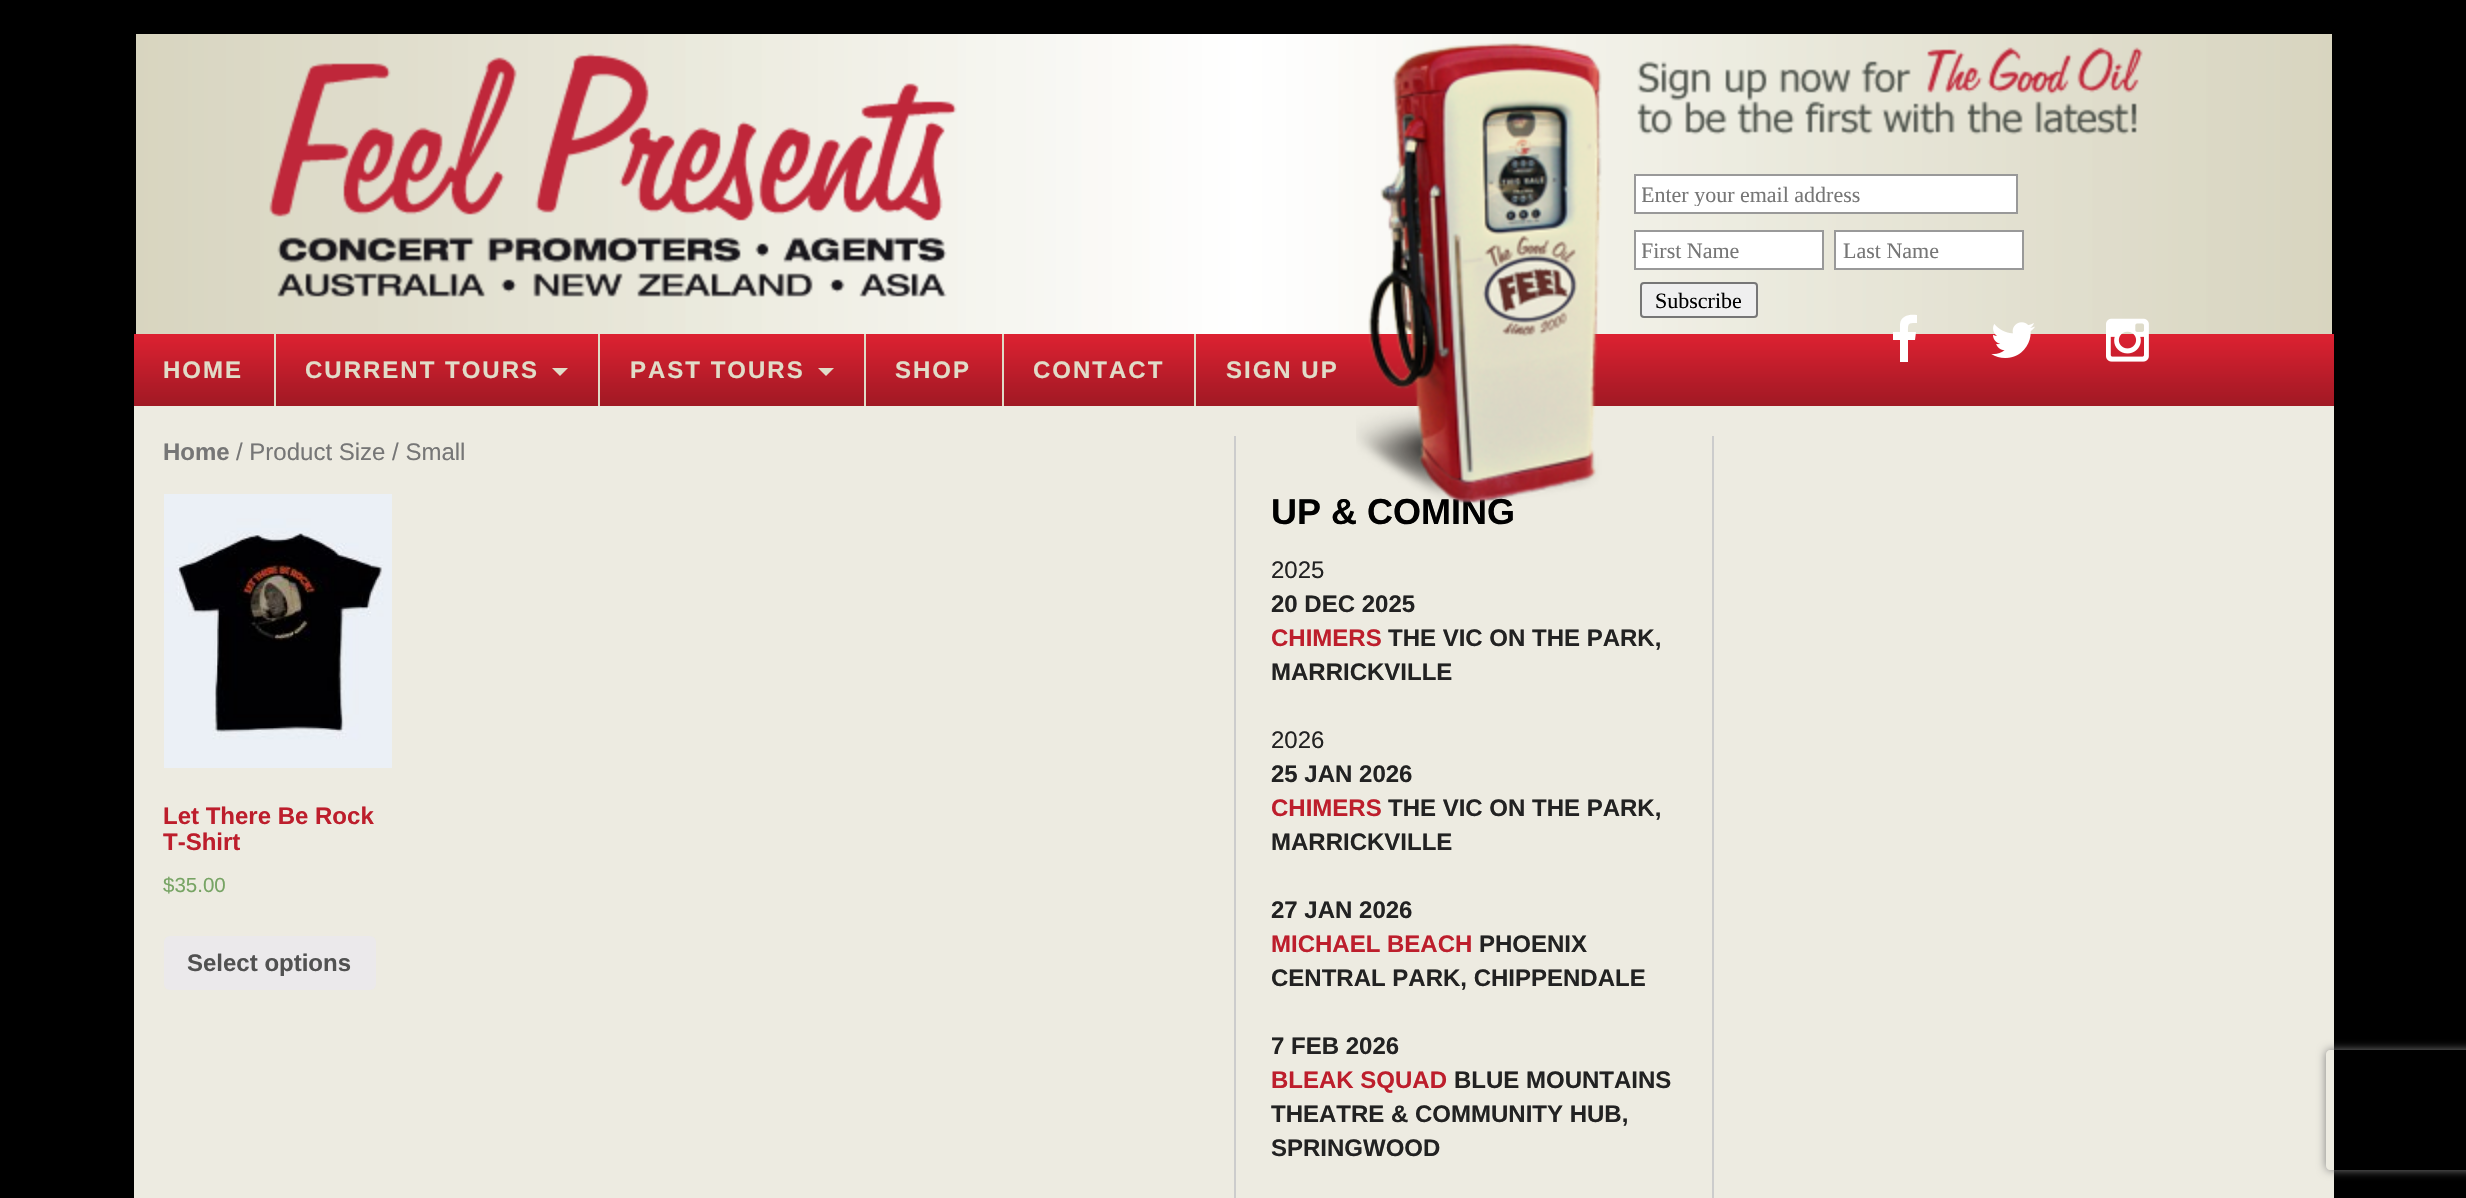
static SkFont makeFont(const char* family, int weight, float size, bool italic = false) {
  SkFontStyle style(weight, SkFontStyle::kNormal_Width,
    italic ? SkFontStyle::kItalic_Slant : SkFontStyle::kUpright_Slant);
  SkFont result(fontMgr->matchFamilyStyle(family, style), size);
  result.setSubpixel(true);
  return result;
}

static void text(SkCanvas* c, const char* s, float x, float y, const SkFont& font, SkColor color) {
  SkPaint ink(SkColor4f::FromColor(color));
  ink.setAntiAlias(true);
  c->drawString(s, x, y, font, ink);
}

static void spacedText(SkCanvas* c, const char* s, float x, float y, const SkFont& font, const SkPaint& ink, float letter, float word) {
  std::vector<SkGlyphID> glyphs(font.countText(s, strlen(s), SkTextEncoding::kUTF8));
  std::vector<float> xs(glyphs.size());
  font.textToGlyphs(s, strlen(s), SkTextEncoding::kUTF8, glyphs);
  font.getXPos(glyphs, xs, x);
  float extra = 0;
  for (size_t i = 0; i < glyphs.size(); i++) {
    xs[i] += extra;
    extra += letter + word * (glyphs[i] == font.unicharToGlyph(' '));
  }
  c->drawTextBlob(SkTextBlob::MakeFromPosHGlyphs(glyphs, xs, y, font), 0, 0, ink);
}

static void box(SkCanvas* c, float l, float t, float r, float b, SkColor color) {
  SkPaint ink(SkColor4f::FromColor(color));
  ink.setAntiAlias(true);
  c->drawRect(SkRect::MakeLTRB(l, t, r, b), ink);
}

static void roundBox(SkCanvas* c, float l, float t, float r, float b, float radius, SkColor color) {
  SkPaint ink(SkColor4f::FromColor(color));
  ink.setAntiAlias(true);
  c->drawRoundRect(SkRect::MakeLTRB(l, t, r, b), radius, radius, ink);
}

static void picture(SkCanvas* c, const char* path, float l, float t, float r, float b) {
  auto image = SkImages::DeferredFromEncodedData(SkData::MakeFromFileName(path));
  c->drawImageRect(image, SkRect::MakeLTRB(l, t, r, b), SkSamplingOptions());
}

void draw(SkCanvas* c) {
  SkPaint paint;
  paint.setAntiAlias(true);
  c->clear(0xff000000);
  picture(c, "img_01.png", 136, 34, 2332, 334);
  picture(c, "img_02.png", 269, 53, 957, 297);
  picture(c, "img_07.png", 134, 334, 2334, 406);
  box(c, 134, 406, 2334, 1198, 0xffedebe1);
  SkFont face1 = makeFont("Liberation Sans", 700, 36);
  text(c, "UP & COMING", 1271, 524, face1, 0xff000000);
  picture(c, "img_03.png", 1356, 41, 1602, 504);
  picture(c, "img_04.png", 1637, 47, 2143, 135);
  paint.setColor(0xffffffff);
  c->drawRect(SkRect::MakeLTRB(1635, 175, 2017, 213), paint);
  paint.setStyle(SkPaint::kStroke_Style);
  paint.setStrokeWidth(2);
  paint.setColor(0xff999999);
  c->drawRect(SkRect::MakeLTRB(1635, 175, 2017, 213), paint);
  c->save();
  c->clipRect(SkRect::MakeLTRB(1642, 182, 2010, 206));
  SkFont face2 = makeFont("Liberation Serif", 400, 22);
  text(c, "Enter your email address", 1641, 202, face2, 0xff767676);
  c->restore();
  paint.setStyle(SkPaint::kFill_Style);
  paint.setColor(0xffffffff);
  c->drawRect(SkRect::MakeLTRB(1635, 231, 1823, 269), paint);
  paint.setStyle(SkPaint::kStroke_Style);
  paint.setColor(0xff999999);
  c->drawRect(SkRect::MakeLTRB(1635, 231, 1823, 269), paint);
  c->save();
  c->clipRect(SkRect::MakeLTRB(1642, 238, 1816, 262));
  text(c, "First Name", 1641, 258, face2, 0xff767676);
  c->restore();
  paint.setStyle(SkPaint::kFill_Style);
  paint.setColor(0xffffffff);
  c->drawRect(SkRect::MakeLTRB(1835, 231, 2023, 269), paint);
  paint.setStyle(SkPaint::kStroke_Style);
  paint.setColor(0xff999999);
  c->drawRect(SkRect::MakeLTRB(1835, 231, 2023, 269), paint);
  text(c, "Last Name", 1843, 258, face2, 0xff767676);
  paint.setStyle(SkPaint::kFill_Style);
  paint.setColor(0xffefefef);
  c->drawRoundRect(SkRect::MakeLTRB(1641, 283, 1757, 317), 3, 3, paint);
  paint.setStyle(SkPaint::kStroke_Style);
  paint.setColor(0xff767676);
  c->drawRoundRect(SkRect::MakeLTRB(1641, 283, 1757, 317), 3, 3, paint);
  text(c, "Subscribe", 1655, 308, face2, 0xff000000);
  paint.setStyle(SkPaint::kFill_Style);
  paint.setColor(0xffffffff);
  c->drawPath(SkPathBuilder().moveTo(1917, 315).lineTo(1917, 323).cubicTo(1908, 323, 1908, 323, 1908, 332).lineTo(1916, 332).lineTo(1915, 340).lineTo(1908, 340).lineTo(1908, 362).lineTo(1900, 362).lineTo(1900, 340).lineTo(1893, 340).lineTo(1893, 332).lineTo(1900, 332).lineTo(1900, 324).cubicTo(1901, 315, 1910, 314, 1917, 315).close().detach(), paint);
  picture(c, "img_05.png", 1991, 322, 2035, 358);
  picture(c, "img_06.png", 2106, 318, 2149, 362);
  SkFont face3 = makeFont("Liberation Sans", 700, 24);
  paint.setColor(0xffe1dcc8);
  spacedText(c, "HOME", 163, 378, face3, paint, 2, 0);
  box(c, 274, 334, 276, 406, 0xffe0dbc7);
  spacedText(c, "CURRENT TOURS", 305, 378, face3, paint, 2, 0);
  c->drawPath(SkPathBuilder().moveTo(552, 368).lineTo(568, 368).lineTo(560, 376).close().detach(), paint);
  box(c, 598, 334, 600, 406, 0xffe0dbc7);
  spacedText(c, "PAST TOURS", 630, 378, face3, paint, 2, 0);
  c->drawPath(SkPathBuilder().moveTo(818, 368).lineTo(834, 368).lineTo(826, 376).close().detach(), paint);
  box(c, 864, 334, 866, 406, 0xffe0dbc7);
  spacedText(c, "SHOP", 895, 378, face3, paint, 2, 0);
  box(c, 1002, 334, 1004, 406, 0xffe0dbc7);
  spacedText(c, "CONTACT", 1033, 378, face3, paint, 2, 0);
  box(c, 1194, 334, 1196, 406, 0xffe0dbc7);
  spacedText(c, "SIGN UP", 1226, 378, face3, paint, 2, 0);
  text(c, "Home", 163, 460, face3, 0xff767676);
  SkFont face4 = makeFont("Liberation Sans", 400, 24);
  text(c, "/ Product Size / Small", 236, 460, face4, 0xff767676);
  picture(c, "img_08.png", 164, 494, 392, 768);
  text(c, "Let There Be Rock", 163, 824, face3, 0xffbd1e2c);
  text(c, "T-Shirt", 163, 850, face3, 0xffbd1e2c);
  SkFont face5 = makeFont("Liberation Sans", 400, 20.5f);
  text(c, "$35.00", 163, 892, face5, 0xff77a464);
  roundBox(c, 164, 936, 376, 990, 6, 0xffebe9eb);
  text(c, "Select options", 187, 971, face3, 0xff515151);
  box(c, 1712, 436, 1714, 1198, 0xffcccccc);
  box(c, 1234, 436, 1236, 1198, 0xffcccccc);
  text(c, "2025", 1271, 578, face4, 0xff222222);
  text(c, "20 DEC 2025", 1271, 612, face3, 0xff222222);
  text(c, "CHIMERS", 1271, 646, face3, 0xffbd1e2c);
  text(c, "THE VIC ON THE PARK,", 1388, 646, face3, 0xff222222);
  text(c, "MARRICKVILLE", 1271, 680, face3, 0xff222222);
  text(c, "2026", 1271, 748, face4, 0xff222222);
  text(c, "25 JAN 2026", 1271, 782, face3, 0xff222222);
  text(c, "CHIMERS", 1271, 816, face3, 0xffbd1e2c);
  text(c, "THE VIC ON THE PARK,", 1388, 816, face3, 0xff222222);
  text(c, "MARRICKVILLE", 1271, 850, face3, 0xff222222);
  text(c, "27 JAN 2026", 1271, 918, face3, 0xff222222);
  text(c, "MICHAEL BEACH", 1271, 952, face3, 0xffbd1e2c);
  text(c, "PHOENIX", 1479, 952, face3, 0xff222222);
  text(c, "CENTRAL PARK, CHIPPENDALE", 1271, 986, face3, 0xff222222);
  text(c, "7 FEB 2026", 1271, 1054, face3, 0xff222222);
  text(c, "BLEAK SQUAD", 1271, 1088, face3, 0xffbd1e2c);
  text(c, "BLUE MOUNTAINS", 1454, 1088, face3, 0xff222222);
  text(c, "THEATRE & COMMUNITY HUB,", 1271, 1122, face3, 0xff222222);
  text(c, "SPRINGWOOD", 1271, 1156, face3, 0xff222222);
  c->save();
  c->clipPath(SkPathBuilder(SkPathFillType::kEvenOdd).moveTo(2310, 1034).lineTo(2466, 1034).lineTo(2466, 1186).lineTo(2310, 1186).close().moveTo(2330, 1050).lineTo(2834, 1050).cubicTo(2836, 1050, 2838, 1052, 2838, 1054).lineTo(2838, 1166).cubicTo(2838, 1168, 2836, 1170, 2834, 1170).lineTo(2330, 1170).cubicTo(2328, 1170, 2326, 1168, 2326, 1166).lineTo(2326, 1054).cubicTo(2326, 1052, 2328, 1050, 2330, 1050).close().detach(), true);
  paint.setColor(0xff808080);
  paint.setMaskFilter(SkMaskFilter::MakeBlur(kNormal_SkBlurStyle, 5));
  c->drawRoundRect(SkRect::MakeLTRB(2326, 1050, 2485, 1170), 4, 4, paint);
  paint.setMaskFilter(nullptr);
  c->restore();
}
